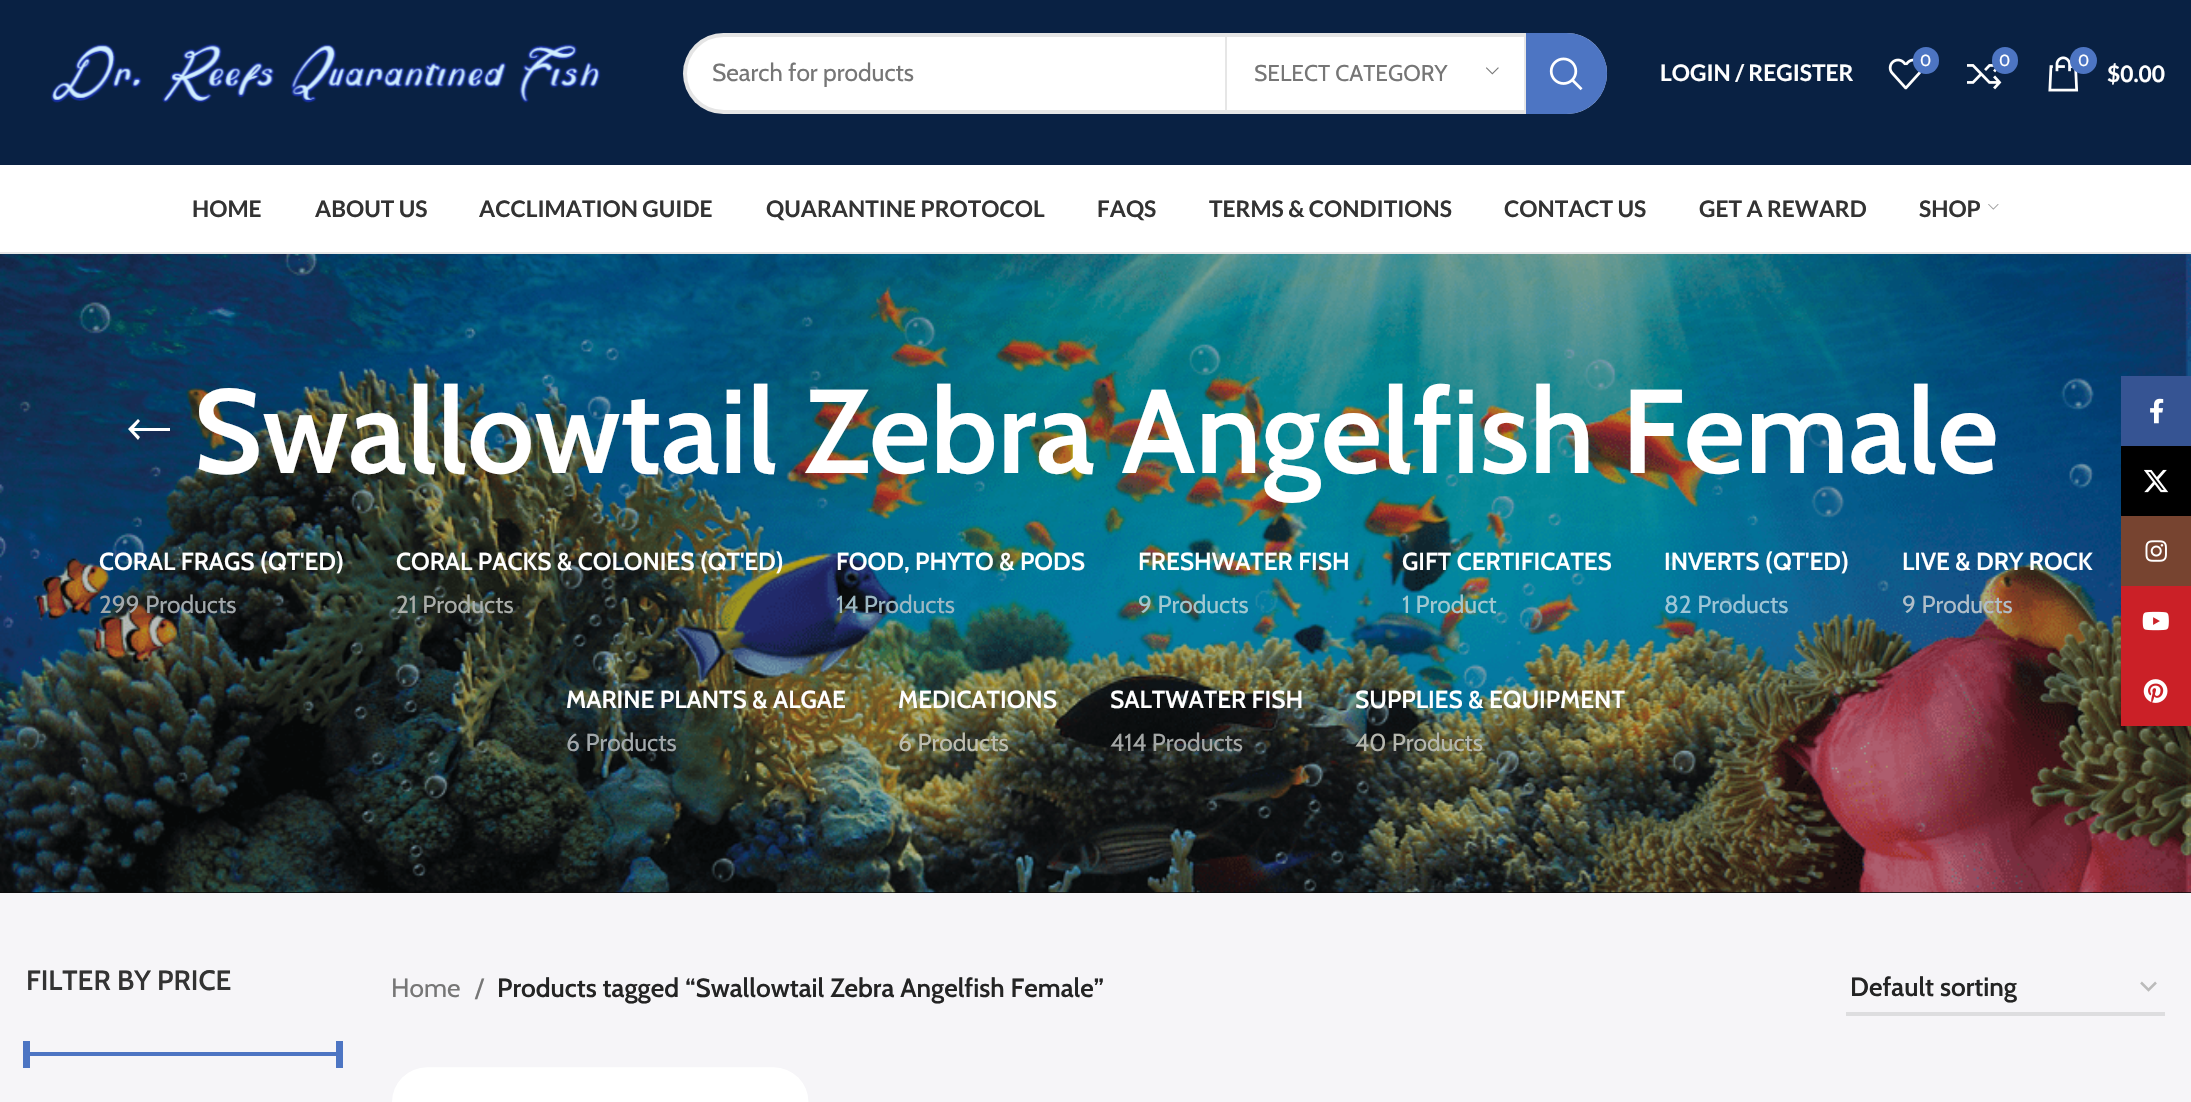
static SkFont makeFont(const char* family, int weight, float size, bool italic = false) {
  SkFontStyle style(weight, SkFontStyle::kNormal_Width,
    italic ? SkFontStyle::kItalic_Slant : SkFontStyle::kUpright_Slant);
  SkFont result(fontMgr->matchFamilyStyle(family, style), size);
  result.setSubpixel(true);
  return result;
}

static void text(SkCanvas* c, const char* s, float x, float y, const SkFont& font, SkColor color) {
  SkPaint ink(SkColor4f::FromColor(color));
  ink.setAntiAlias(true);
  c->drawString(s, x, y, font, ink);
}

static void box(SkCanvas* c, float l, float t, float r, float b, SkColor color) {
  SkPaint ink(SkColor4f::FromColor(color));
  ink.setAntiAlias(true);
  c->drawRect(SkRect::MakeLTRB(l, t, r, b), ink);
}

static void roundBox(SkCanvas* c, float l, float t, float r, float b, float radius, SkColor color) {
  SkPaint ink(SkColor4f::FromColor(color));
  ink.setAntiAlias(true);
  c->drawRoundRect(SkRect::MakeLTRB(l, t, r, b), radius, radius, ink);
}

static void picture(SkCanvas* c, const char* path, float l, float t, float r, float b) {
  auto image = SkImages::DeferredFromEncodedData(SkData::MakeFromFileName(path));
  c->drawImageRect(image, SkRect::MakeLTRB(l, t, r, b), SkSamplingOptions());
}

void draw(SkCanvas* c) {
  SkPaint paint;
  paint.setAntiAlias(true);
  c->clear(0xfff6f5f8);
  box(c, 0, 0, 2191, 165, 0xff092143);
  picture(c, "img_01.png", 50, 43, 601, 103);
  roundBox(c, 683, 33, 1607, 114, 40.5f, 0xffffffff);
  paint.setStyle(SkPaint::kStroke_Style);
  paint.setStrokeWidth(4);
  paint.setColor(0x1a000000);
  c->drawRoundRect(SkRect::MakeLTRB(685, 35, 1605, 112), 38.5f, 38.5f, paint);
  SkFont face1 = makeFont("Cabin", 400, 24.5f);
  text(c, "Search for products", 712, 81, face1, 0xff767676);
  box(c, 1524, 37, 1526, 110, 0xffe6e6e6);
  box(c, 1225, 37, 1227, 110, 0xffe6e6e6);
  SkFont face2 = makeFont("Cabin", 400, 22.75f);
  text(c, "SELECT CATEGORY", 1254, 81, face2, 0xff767676);
  picture(c, "img_02.png", 1486, 67, 1499, 75);
  paint.setStyle(SkPaint::kFill_Style);
  paint.setColor(0xff4d75c3);
  c->drawPath(SkPathBuilder().moveTo(1526, 33).lineTo(1566.5f, 33).cubicTo(1589, 33, 1607, 51, 1607, 73.5f).cubicTo(1607, 96, 1589, 114, 1566.5f, 114).lineTo(1526, 114).close().detach(), paint);
  picture(c, "img_03.png", 1549, 57, 1583, 91);
  SkFont face3 = makeFont("Lato", 700, 22.75f);
  text(c, "LOGIN / REGISTER", 1660, 81, face3, 0xffffffff);
  picture(c, "img_04.png", 1888, 58, 1921, 90);
  roundBox(c, 1913, 47, 1939, 74, 13, 0xff4d75c3);
  SkFont face4 = makeFont("Cabin", 400, 16);
  text(c, "0", 1920, 66, face4, 0xffffffff);
  picture(c, "img_05.png", 1967, 64, 2002, 90);
  roundBox(c, 1992, 47, 2018, 74, 13, 0xff4d75c3);
  text(c, "0", 1999, 66, face4, 0xffffffff);
  picture(c, "img_06.png", 2048, 56, 2079, 92);
  c->drawCircle(2083.5f, 60.5f, 13.5f, paint);
  text(c, "0", 2078, 66, face4, 0xffffffff);
  text(c, "$0.00", 2107, 82, face3, 0xffffffff);
  box(c, 0, 165, 2191, 252, 0xffffffff);
  box(c, 0, 252, 2191, 254, 0xffe6e6e6);
  text(c, "HOME", 192, 217, face3, 0xff333333);
  text(c, "ABOUT US", 315, 217, face3, 0xff333333);
  text(c, "ACCLIMATION GUIDE", 479, 217, face3, 0xff333333);
  text(c, "QUARANTINE PROTOCOL", 766, 217, face3, 0xff333333);
  text(c, "FAQS", 1097, 217, face3, 0xff333333);
  text(c, "TERMS & CONDITIONS", 1209, 217, face3, 0xff333333);
  text(c, "CONTACT US", 1504, 217, face3, 0xff333333);
  text(c, "GET A REWARD", 1699, 217, face3, 0xff333333);
  text(c, "SHOP", 1919, 217, face3, 0xff333333);
  picture(c, "img_07.png", 1988, 204, 1999, 210);
  box(c, 0, 892, 2191, 893, 0xff0a0a0a);
  picture(c, "img_08.png", 0, 254, 2191, 893);
  paint.setColor(0xffffffff);
  c->drawPath(SkPathBuilder().moveTo(140, 437).lineTo(134, 431).lineTo(170, 431).lineTo(170, 428).lineTo(134, 428).lineTo(140, 421).lineTo(138, 419).lineTo(128, 429).lineTo(138, 440).close().detach(), paint);
  SkFont face5 = makeFont("Cabin", 600, 119);
  text(c, "Swallowtail Zebra Angelfish Female", 193, 473, face5, 0xffffffff);
  SkFont face6 = makeFont("Cabin", 600, 24.5f);
  text(c, "CORAL FRAGS (QT'ED)", 99, 570, face6, 0xffffffff);
  text(c, "299 Products", 99, 613, face1, 0xffa2a8ab);
  text(c, "CORAL PACKS & COLONIES (QT'ED)", 396, 570, face6, 0xffffffff);
  text(c, "21 Products", 396, 613, face1, 0xffaaada9);
  text(c, "FOOD, PHYTO & PODS", 836, 570, face6, 0xffffffff);
  text(c, "14 Products", 836, 613, face1, 0xff9db8c3);
  text(c, "FRESHWATER FISH", 1138, 570, face6, 0xffffffff);
  text(c, "9 Products", 1138, 613, face1, 0xffa1c8d0);
  text(c, "GIFT CERTIFICATES", 1402, 570, face6, 0xffffffff);
  text(c, "1 Product", 1402, 613, face1, 0xffa1c8d0);
  text(c, "INVERTS (QT'ED)", 1664, 570, face6, 0xffffffff);
  text(c, "82 Products", 1664, 613, face1, 0xff9dc5d6);
  text(c, "LIVE & DRY ROCK", 1902, 570, face6, 0xffffffff);
  text(c, "9 Products", 1902, 613, face1, 0xffb0bec8);
  text(c, "MARINE PLANTS & ALGAE", 566, 708, face6, 0xffffffff);
  text(c, "6 Products", 566, 751, face1, 0xffa2a8ab);
  text(c, "MEDICATIONS", 898, 708, face6, 0xffffffff);
  text(c, "6 Products", 898, 751, face1, 0xffbdbdb0);
  text(c, "SALTWATER FISH", 1110, 708, face6, 0xffffffff);
  text(c, "414 Products", 1110, 751, face1, 0xffa3a6a5);
  text(c, "SUPPLIES & EQUIPMENT", 1355, 708, face6, 0xffffffff);
  text(c, "40 Products", 1355, 751, face1, 0xffb5b6ae);
  SkFont face7 = makeFont("Cabin", 600, 28);
  text(c, "FILTER BY PRICE", 26, 990, face7, 0xff333333);
  box(c, 26, 1052, 340, 1056, 0xff4d75c3);
  box(c, 23, 1041, 30, 1068, 0xff4d75c3);
  box(c, 336, 1041, 343, 1068, 0xff4d75c3);
  SkFont face8 = makeFont("Cabin", 400, 26.25f);
  text(c, "Home", 391, 997, face8, 0xff767676);
  text(c, "/", 475, 997, face8, 0xff767676);
  SkFont face9 = makeFont("Cabin", 600, 26.25f);
  text(c, "Products tagged “Swallowtail Zebra Angelfish Female”", 497, 997, face9, 0xff242424);
  paint.setStyle(SkPaint::kStroke_Style);
  paint.setStrokeWidth(2.5f);
  paint.setColor(0xffbbbbbb);
  c->drawPath(SkPathBuilder().moveTo(2141, 982.5f).lineTo(2148.5f, 990).lineTo(2156, 982.5f).detach(), paint);
  box(c, 1846, 1012, 2165, 1016, 0xffdddddf);
  text(c, "Default sorting", 1850, 996, face9, 0xff242424);
  picture(c, "img_09.png", 392, 1067, 809, 1102);
  box(c, 2121, 376, 2191, 446, 0xff365493);
  picture(c, "img_10.png", 2150, 398, 2164, 424);
  box(c, 2121, 446, 2191, 516, 0xff000000);
  picture(c, "img_11.png", 2144, 469, 2169, 493);
  box(c, 2121, 516, 2191, 586, 0xff774430);
  picture(c, "img_12.png", 2145, 540, 2167, 562);
  box(c, 2121, 586, 2191, 726, 0xffcb2027);
  picture(c, "img_13.png", 2142, 611, 2169, 631);
  picture(c, "img_14.png", 2143, 679, 2168, 703);
}
